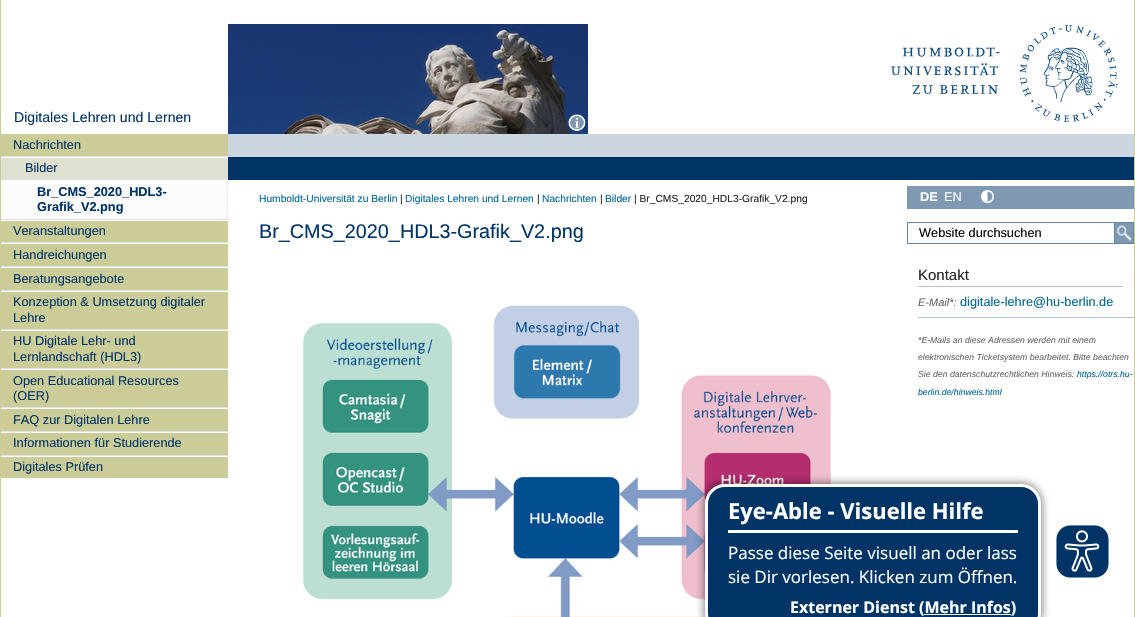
static SkFont makeFont(const char* family, int weight, float size, bool italic = false) {
  SkFontStyle style(weight, SkFontStyle::kNormal_Width,
    italic ? SkFontStyle::kItalic_Slant : SkFontStyle::kUpright_Slant);
  SkFont result(fontMgr->matchFamilyStyle(family, style), size);
  result.setSubpixel(true);
  return result;
}

static void text(SkCanvas* c, const char* s, float x, float y, const SkFont& font, SkColor color) {
  SkPaint ink(SkColor4f::FromColor(color));
  ink.setAntiAlias(true);
  c->drawString(s, x, y, font, ink);
}

static void box(SkCanvas* c, float l, float t, float r, float b, SkColor color) {
  SkPaint ink(SkColor4f::FromColor(color));
  ink.setAntiAlias(true);
  c->drawRect(SkRect::MakeLTRB(l, t, r, b), ink);
}

static void picture(SkCanvas* c, const char* path, float l, float t, float r, float b) {
  auto image = SkImages::DeferredFromEncodedData(SkData::MakeFromFileName(path));
  c->drawImageRect(image, SkRect::MakeLTRB(l, t, r, b), SkSamplingOptions());
}

void draw(SkCanvas* c) {
  SkPaint paint;
  paint.setAntiAlias(true);
  c->clear(0xffffffff);
  picture(c, "img_01.png", 228, 24, 588, 134);
  picture(c, "img_02.png", 568, 114, 586, 131);
  picture(c, "img_03.png", 891, 25, 1118, 122);
  box(c, 1134, 0, 1135, 617, 0xffcccc99);
  box(c, 0, 0, 1, 617, 0xffcccc99);
  SkFont face1 = makeFont("Liberation Sans", 400, 14.1f);
  text(c, "Digitales Lehren und Lernen", 14, 122, face1, 0xff003366);
  box(c, 1, 134, 228, 156, 0xffcccc99);
  SkFont face2 = makeFont("Liberation Sans", 400, 12.75f);
  text(c, "Nachrichten", 13, 149, face2, 0xff003366);
  box(c, 1, 158, 228, 179, 0xffe0e0d1);
  box(c, 1, 156, 228, 157, 0xffdee2e6);
  text(c, "Bilder", 25, 172, face2, 0xff003366);
  box(c, 1, 179, 228, 180, 0xffdee2e6);
  box(c, 227, 179, 228, 219, 0xfff0f0e8);
  box(c, 1, 181, 227, 219, 0xfffcfcfd);
  SkFont face3 = makeFont("Liberation Sans", 700, 12.75f);
  text(c, "Br_CMS_2020_HDL3-", 37, 196, face3, 0xff003366);
  text(c, "Grafik_V2.png", 37, 211, face3, 0xff003366);
  box(c, 1, 221, 228, 242, 0xffcccc99);
  box(c, 1, 219, 228, 220, 0xffdee2e6);
  text(c, "Veranstaltungen", 13, 235, face2, 0xff003366);
  box(c, 1, 244, 228, 266, 0xffcccc99);
  box(c, 1, 242, 228, 243, 0xffdee2e6);
  text(c, "Handreichungen", 13, 259, face2, 0xff003366);
  box(c, 1, 268, 228, 290, 0xffcccc99);
  box(c, 1, 266, 228, 267, 0xffdee2e6);
  text(c, "Beratungsangebote", 13, 283, face2, 0xff003366);
  box(c, 1, 292, 228, 329, 0xffcccc99);
  box(c, 1, 290, 228, 291, 0xffdee2e6);
  text(c, "Konzeption & Umsetzung digitaler", 13, 306, face2, 0xff003366);
  text(c, "Lehre", 13, 322, face2, 0xff003366);
  box(c, 1, 331, 228, 368, 0xffcccc99);
  box(c, 1, 329, 228, 330, 0xffdee2e6);
  text(c, "HU Digitale Lehr- und", 13, 345, face2, 0xff003366);
  text(c, "Lernlandschaft (HDL3)", 13, 361, face2, 0xff003366);
  box(c, 1, 370, 228, 407, 0xffcccc99);
  box(c, 1, 368, 228, 369, 0xffdee2e6);
  text(c, "Open Educational Resources", 13, 385, face2, 0xff003366);
  text(c, "(OER)", 13, 400, face2, 0xff003366);
  box(c, 1, 409, 228, 431, 0xffcccc99);
  box(c, 1, 407, 228, 408, 0xffdee2e6);
  text(c, "FAQ zur Digitalen Lehre", 13, 424, face2, 0xff003366);
  box(c, 1, 433, 228, 455, 0xffcccc99);
  box(c, 1, 431, 228, 432, 0xffdee2e6);
  text(c, "Informationen für Studierende", 13, 447, face2, 0xff003366);
  box(c, 1, 457, 228, 478, 0xffcccc99);
  box(c, 1, 455, 228, 456, 0xffdee2e6);
  text(c, "Digitales Prüfen", 13, 471, face2, 0xff003366);
  box(c, 228, 134, 1134, 157, 0xffccd6e0);
  box(c, 228, 157, 1134, 180, 0xff003366);
  SkFont face4 = makeFont("Liberation Sans", 400, 10.25f);
  text(c, "Humboldt-Universität zu Berlin", 259, 202, face4, 0xff006699);
  text(c, "|", 400, 202, face4, 0xff212529);
  text(c, "Digitales Lehren und Lernen", 405, 202, face4, 0xff006699);
  text(c, "|", 537, 202, face4, 0xff212529);
  text(c, "Nachrichten", 542, 202, face4, 0xff006699);
  text(c, "|", 600, 202, face4, 0xff212529);
  text(c, "Bilder", 605, 202, face4, 0xff006699);
  text(c, "| Br_CMS_2020_HDL3-Grafik_V2.png", 634, 202, face4, 0xff212529);
  SkFont face5 = makeFont("Liberation Sans", 400, 19.8f);
  text(c, "Br_CMS_2020_HDL3-Grafik_V2.png", 259, 238, face5, 0xff003366);
  picture(c, "img_04.png", 303, 305, 831, 617);
  box(c, 907, 186, 1134, 209, 0xff8099b2);
  text(c, "DE", 920, 201, face3, 0xffffffff);
  text(c, "EN", 944, 201, face2, 0xffffffff);
  picture(c, "img_05.png", 981, 190, 994, 203);
  paint.setStyle(SkPaint::kStroke_Style);
  paint.setStrokeWidth(1);
  paint.setColor(0xff6685a3);
  c->drawRect(SkRect::MakeLTRB(907.5f, 222.5f, 1133.5f, 243.5f), paint);
  text(c, "Website durchsuchen", 919, 237, face2, 0xff000000);
  c->drawRect(SkRect::MakeLTRB(1114.5f, 222.5f, 1133.5f, 243.5f), paint);
  picture(c, "img_06.png", 1115, 223, 1133, 243);
  box(c, 918, 286, 1123, 287, 0xffb2c1d1);
  SkFont face6 = makeFont("Liberation Sans", 400, 15);
  text(c, "Kontakt", 918, 280, face6, 0xff212529);
  SkFont face7 = makeFont("Liberation Sans", 400, 11, true);
  text(c, "E-Mail*:", 918, 306, face7, 0xff666666);
  text(c, "digitale-lehre@hu-berlin.de", 960, 306, face2, 0xff006699);
  box(c, 918, 317, 1134, 318, 0xffb2c1d1);
  SkFont face8 = makeFont("Liberation Sans", 400, 8.7f, true);
  text(c, "*E-Mails an diese Adressen werden mit einem", 918, 343, face8, 0xff666666);
  text(c, "elektronischen Ticketsystem bearbeitet. Bitte beachten", 918, 360, face8, 0xff666666);
  text(c, "Sie den datenschutzrechtlichen Hinweis:", 918, 377, face8, 0xff666666);
  text(c, "https://otrs.hu-", 1077, 377, face8, 0xff006699);
  text(c, "berlin.de/hinweis.html", 918, 395, face8, 0xff006699);
  paint.setStyle(SkPaint::kFill_Style);
  paint.setColor(0x80000000);
  paint.setMaskFilter(SkMaskFilter::MakeBlur(kNormal_SkBlurStyle, 4));
  c->drawRoundRect(SkRect::MakeLTRB(704, 483, 1042, 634), 21, 21, paint);
  paint.setMaskFilter(nullptr);
  paint.setColor(0xff003366);
  c->drawRoundRect(SkRect::MakeLTRB(706.5f, 485.5f, 1039.5f, 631.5f), 18.5f, 18.5f, paint);
  paint.setStyle(SkPaint::kStroke_Style);
  paint.setStrokeWidth(3);
  paint.setColor(0xffffffff);
  c->drawRoundRect(SkRect::MakeLTRB(706.5f, 485.5f, 1039.5f, 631.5f), 18.5f, 18.5f, paint);
  box(c, 728, 530, 1018, 533, 0xffffffff);
  SkFont face9 = makeFont("Open Sans", 700, 22);
  text(c, "Eye-Able - Visuelle Hilfe", 728, 519, face9, 0xffffffff);
  SkFont face10 = makeFont("Open Sans", 400, 17);
  text(c, "Passe diese Seite visuell an oder lass", 728, 559, face10, 0xffffffff);
  text(c, "sie Dir vorlesen. Klicken zum Öffnen.", 728, 583, face10, 0xffffffff);
  SkFont face11 = makeFont("Open Sans", 700, 16);
  text(c, "Externer Dienst (Mehr Infos)", 790, 613, face11, 0xffffffff);
  box(c, 924, 614, 1011, 615, 0xffffffff);
  picture(c, "img_07.png", 1055, 524, 1109, 579);
}
